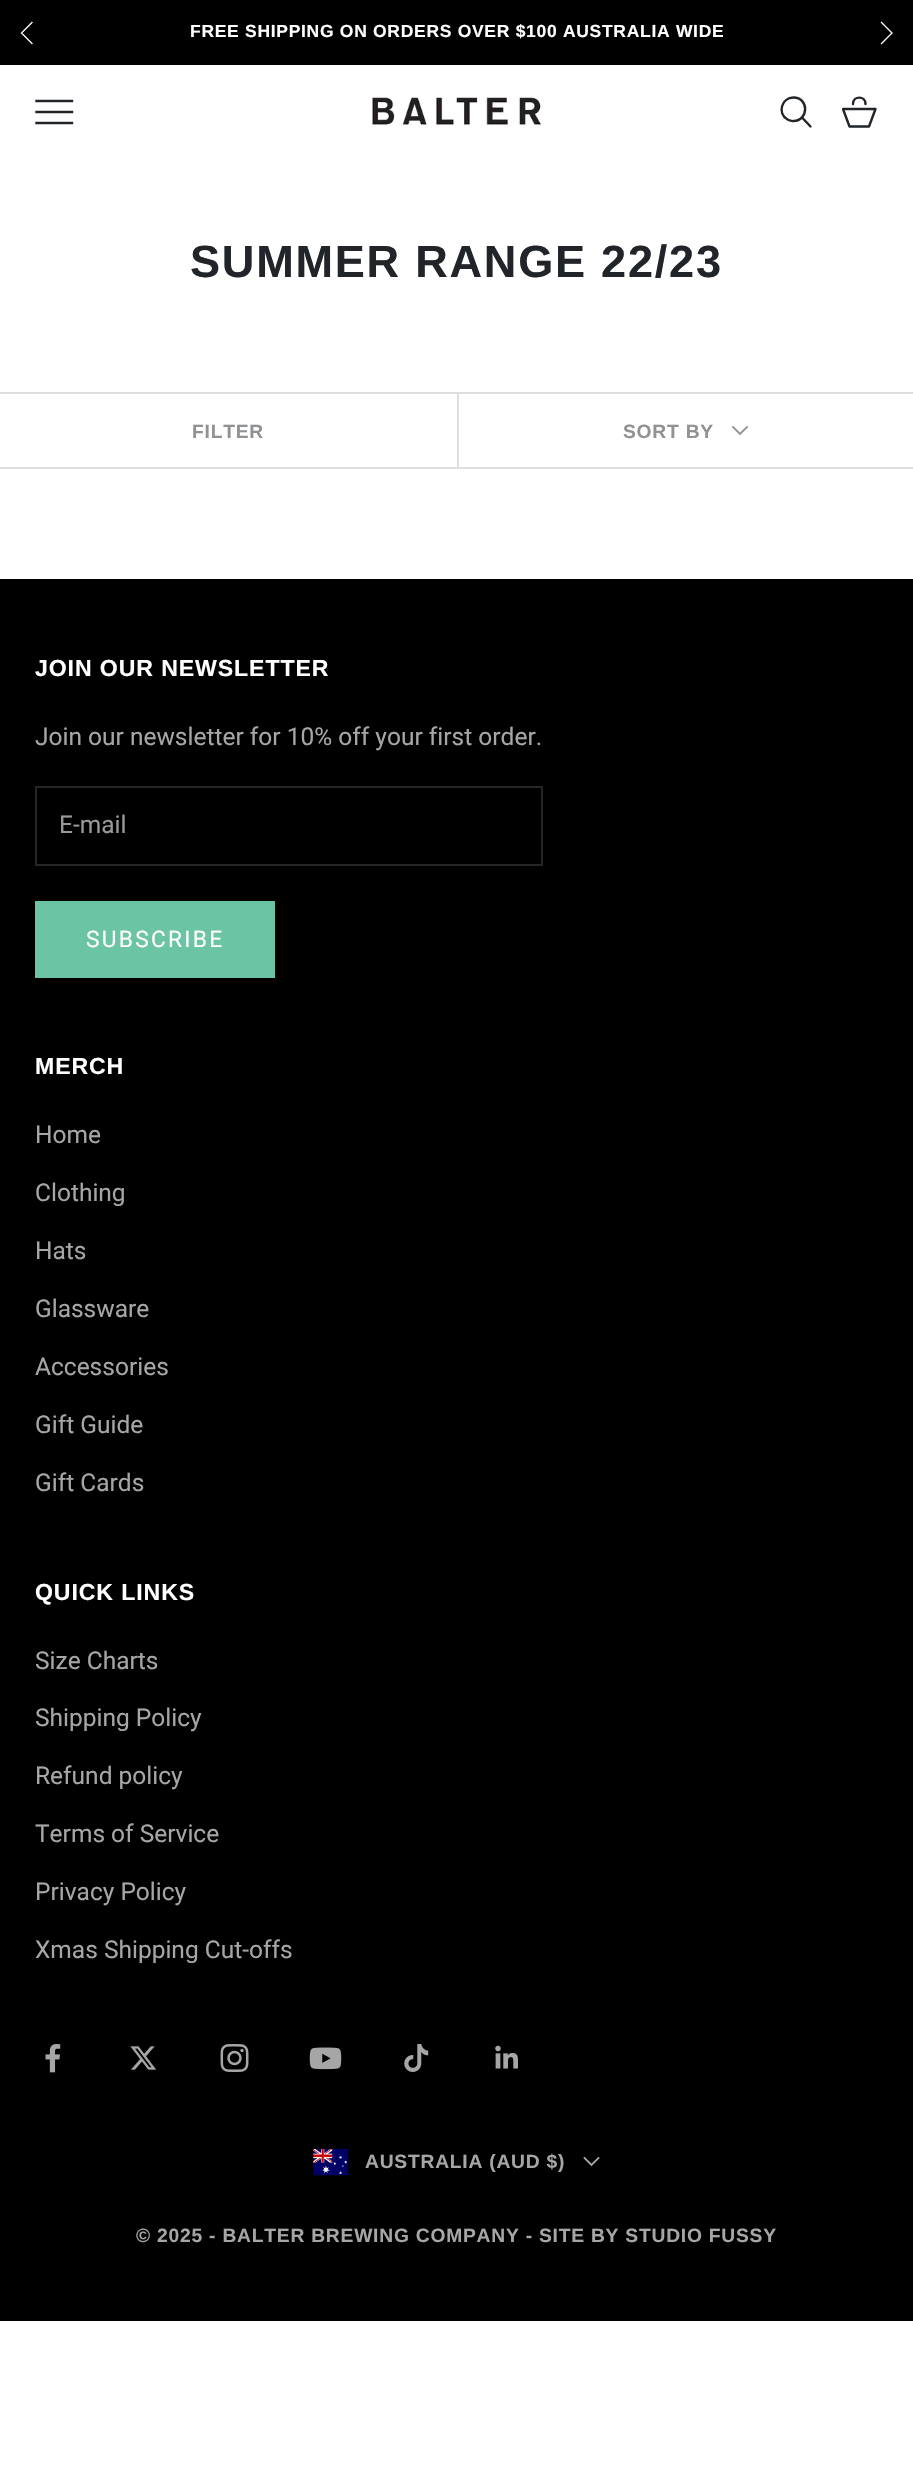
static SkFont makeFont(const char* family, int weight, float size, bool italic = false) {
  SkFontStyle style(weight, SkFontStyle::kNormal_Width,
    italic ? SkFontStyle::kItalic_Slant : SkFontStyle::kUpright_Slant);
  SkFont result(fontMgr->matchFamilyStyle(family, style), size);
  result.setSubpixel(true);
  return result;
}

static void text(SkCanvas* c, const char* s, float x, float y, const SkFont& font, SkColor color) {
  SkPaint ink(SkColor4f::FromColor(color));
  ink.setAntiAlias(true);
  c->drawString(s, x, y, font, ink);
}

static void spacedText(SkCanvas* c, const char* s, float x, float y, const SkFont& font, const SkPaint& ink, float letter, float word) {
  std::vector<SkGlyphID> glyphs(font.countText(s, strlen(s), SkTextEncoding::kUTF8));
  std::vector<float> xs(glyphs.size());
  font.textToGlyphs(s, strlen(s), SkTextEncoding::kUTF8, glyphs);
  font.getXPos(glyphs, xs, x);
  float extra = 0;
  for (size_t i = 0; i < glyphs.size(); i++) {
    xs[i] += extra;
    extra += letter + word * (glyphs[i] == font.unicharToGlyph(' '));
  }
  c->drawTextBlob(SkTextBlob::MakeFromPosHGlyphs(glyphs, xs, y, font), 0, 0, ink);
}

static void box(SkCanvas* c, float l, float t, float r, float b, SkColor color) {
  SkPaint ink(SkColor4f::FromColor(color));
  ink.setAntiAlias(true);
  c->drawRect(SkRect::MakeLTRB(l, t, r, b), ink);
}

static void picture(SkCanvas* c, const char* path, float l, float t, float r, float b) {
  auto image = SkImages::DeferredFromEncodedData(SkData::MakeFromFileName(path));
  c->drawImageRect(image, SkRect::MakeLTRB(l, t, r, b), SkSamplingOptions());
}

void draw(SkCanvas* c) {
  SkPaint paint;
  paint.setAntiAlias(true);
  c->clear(0xffffffff);
  box(c, 0, 0, 913, 65, 0xff000000);
  paint.setStyle(SkPaint::kStroke_Style);
  paint.setStrokeWidth(1.3f);
  paint.setStrokeCap(SkPaint::kSquare_Cap);
  paint.setColor(0xffffffff);
  c->drawPath(SkPathBuilder().moveTo(32, 22.5f).lineTo(21.5f, 33).lineTo(32, 43.5f).detach(), paint);
  SkFont face1 = makeFont("Liberation Sans", 700, 17.5f);
  paint.setStyle(SkPaint::kFill_Style);
  spacedText(c, "FREE SHIPPING ON ORDERS OVER $100 AUSTRALIA WIDE", 190, 37, face1, paint, 0.7f, 0);
  paint.setStyle(SkPaint::kStroke_Style);
  c->drawPath(SkPathBuilder().moveTo(881.5f, 43.5f).lineTo(892, 33).lineTo(881.5f, 22.5f).detach(), paint);
  paint.setStrokeWidth(2.4f);
  paint.setColor(0xff212529);
  c->drawPath(SkPathBuilder().moveTo(36.5f, 123).lineTo(72, 123).moveTo(36.5f, 112).lineTo(72, 112).moveTo(36.5f, 101).lineTo(72, 101).detach(), paint);
  picture(c, "img_01.png", 372, 97, 542, 126);
  paint.setStrokeCap(SkPaint::kButt_Cap);
  c->drawPath(SkPathBuilder().moveTo(793.5f, 97.5f).cubicTo(781.5f, 97.5f, 777, 113.5f, 787.5f, 119.5f).cubicTo(789.5f, 120.5f, 791.5f, 121.5f, 793.5f, 121).cubicTo(809, 120.5f, 809, 97.5f, 793.5f, 97.5f).close().detach(), paint);
  paint.setStrokeCap(SkPaint::kRound_Cap);
  c->drawPath(SkPathBuilder().moveTo(802.5f, 118).lineTo(810.5f, 126.5f).detach(), paint);
  paint.setStrokeJoin(SkPaint::kRound_Join);
  c->drawPath(SkPathBuilder().moveTo(843, 109).lineTo(875.5f, 109).lineTo(869, 126.5f).lineTo(849.5f, 126.5f).close().moveTo(865.5f, 104).cubicTo(865.5f, 95.5f, 853, 95.5f, 853, 104).detach(), paint);
  SkFont face2 = makeFont("Liberation Sans", 700, 45.1f);
  paint.setStyle(SkPaint::kFill_Style);
  spacedText(c, "SUMMER RANGE 22/23", 190, 277, face2, paint, 1.75f, 0);
  paint.setColor(0xffdededf);
  c->drawPath(SkPathBuilder().moveTo(0, 392).lineTo(0, 394).lineTo(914, 394).lineTo(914, 466).lineTo(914, 392).close().detach(), paint);
  c->drawPath(SkPathBuilder().moveTo(0, 467).lineTo(0, 469).lineTo(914, 469).lineTo(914, 396).lineTo(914, 467).close().detach(), paint);
  SkFont face3 = makeFont("Liberation Sans", 700, 19.25f);
  paint.setColor(0xff909294);
  spacedText(c, "FILTER", 192, 438, face3, paint, 0.77f, 0);
  box(c, 457, 394, 459, 467, 0xffdededf);
  spacedText(c, "SORT BY", 623, 438, face3, paint, 0.77f, 0);
  paint.setStyle(SkPaint::kStroke_Style);
  paint.setStrokeWidth(1.8f);
  paint.setStrokeCap(SkPaint::kSquare_Cap);
  paint.setStrokeJoin(SkPaint::kMiter_Join);
  c->drawPath(SkPathBuilder().moveTo(733, 427).lineTo(740, 434).lineTo(747, 427).detach(), paint);
  box(c, 0, 579, 913, 2321, 0xff000000);
  SkFont face4 = makeFont("Liberation Sans", 700, 23.1f);
  paint.setStyle(SkPaint::kFill_Style);
  paint.setColor(0xffffffff);
  spacedText(c, "JOIN OUR NEWSLETTER", 35, 676, face4, paint, 0.9f, 0);
  SkFont face5 = makeFont("Roboto", 400, 24.5f);
  text(c, "Join our newsletter for 10% off your first order.", 35, 745, face5, 0xffa6a6a6);
  paint.setStyle(SkPaint::kStroke_Style);
  paint.setStrokeWidth(2);
  paint.setStrokeCap(SkPaint::kButt_Cap);
  paint.setColor(0xff262626);
  c->drawRect(SkRect::MakeLTRB(36, 787, 542, 865), paint);
  text(c, "E-mail", 59, 833, face5, 0xff999999);
  paint.setStyle(SkPaint::kFill_Style);
  paint.setColor(0xff6bc4a4);
  c->drawRect(SkRect::MakeLTRB(36, 902, 274, 977), paint);
  paint.setStyle(SkPaint::kStroke_Style);
  c->drawRect(SkRect::MakeLTRB(36, 902, 274, 977), paint);
  SkFont face6 = makeFont("Roboto", 400, 22.75f);
  paint.setStyle(SkPaint::kFill_Style);
  paint.setColor(0xffffffff);
  spacedText(c, "SUBSCRIBE", 86, 947, face6, paint, 2.25f, 0);
  spacedText(c, "MERCH", 35, 1074, face4, paint, 0.9f, 0);
  text(c, "Home", 35, 1143, face5, 0xffa6a6a6);
  text(c, "Clothing", 35, 1201, face5, 0xffa6a6a6);
  text(c, "Hats", 35, 1259, face5, 0xffa6a6a6);
  text(c, "Glassware", 35, 1317, face5, 0xffa6a6a6);
  text(c, "Accessories", 35, 1375, face5, 0xffa6a6a6);
  text(c, "Gift Guide", 35, 1433, face5, 0xffa6a6a6);
  text(c, "Gift Cards", 35, 1491, face5, 0xffa6a6a6);
  spacedText(c, "QUICK LINKS", 35, 1600, face4, paint, 0.9f, 0);
  text(c, "Size Charts", 35, 1669, face5, 0xffa6a6a6);
  text(c, "Shipping Policy", 35, 1726, face5, 0xffa6a6a6);
  text(c, "Refund policy", 35, 1784, face5, 0xffa6a6a6);
  text(c, "Terms of Service", 35, 1842, face5, 0xffa6a6a6);
  text(c, "Privacy Policy", 35, 1900, face5, 0xffa6a6a6);
  text(c, "Xmas Shipping Cut-offs", 35, 1958, face5, 0xffa6a6a6);
  picture(c, "img_02.png", 45, 2044, 61, 2073);
  picture(c, "img_03.png", 130, 2046, 156, 2070);
  picture(c, "img_04.png", 220, 2044, 249, 2072);
  picture(c, "img_05.png", 309, 2047, 342, 2070);
  picture(c, "img_06.png", 404, 2044, 429, 2072);
  picture(c, "img_07.png", 495, 2045, 518, 2069);
  picture(c, "img_08.png", 313, 2149, 349, 2176);
  paint.setColor(0xffa6a6a6);
  spacedText(c, "AUSTRALIA (AUD $)", 365, 2168, face3, paint, 0.77f, 0);
  paint.setStyle(SkPaint::kStroke_Style);
  paint.setStrokeWidth(1.8f);
  paint.setStrokeCap(SkPaint::kSquare_Cap);
  c->drawPath(SkPathBuilder().moveTo(584.5f, 2158).lineTo(591.5f, 2165).lineTo(598.5f, 2158).detach(), paint);
  paint.setStyle(SkPaint::kFill_Style);
  spacedText(c, "© 2025 - BALTER BREWING COMPANY - SITE BY STUDIO FUSSY", 136, 2242, face3, paint, 0.77f, 0);
}
